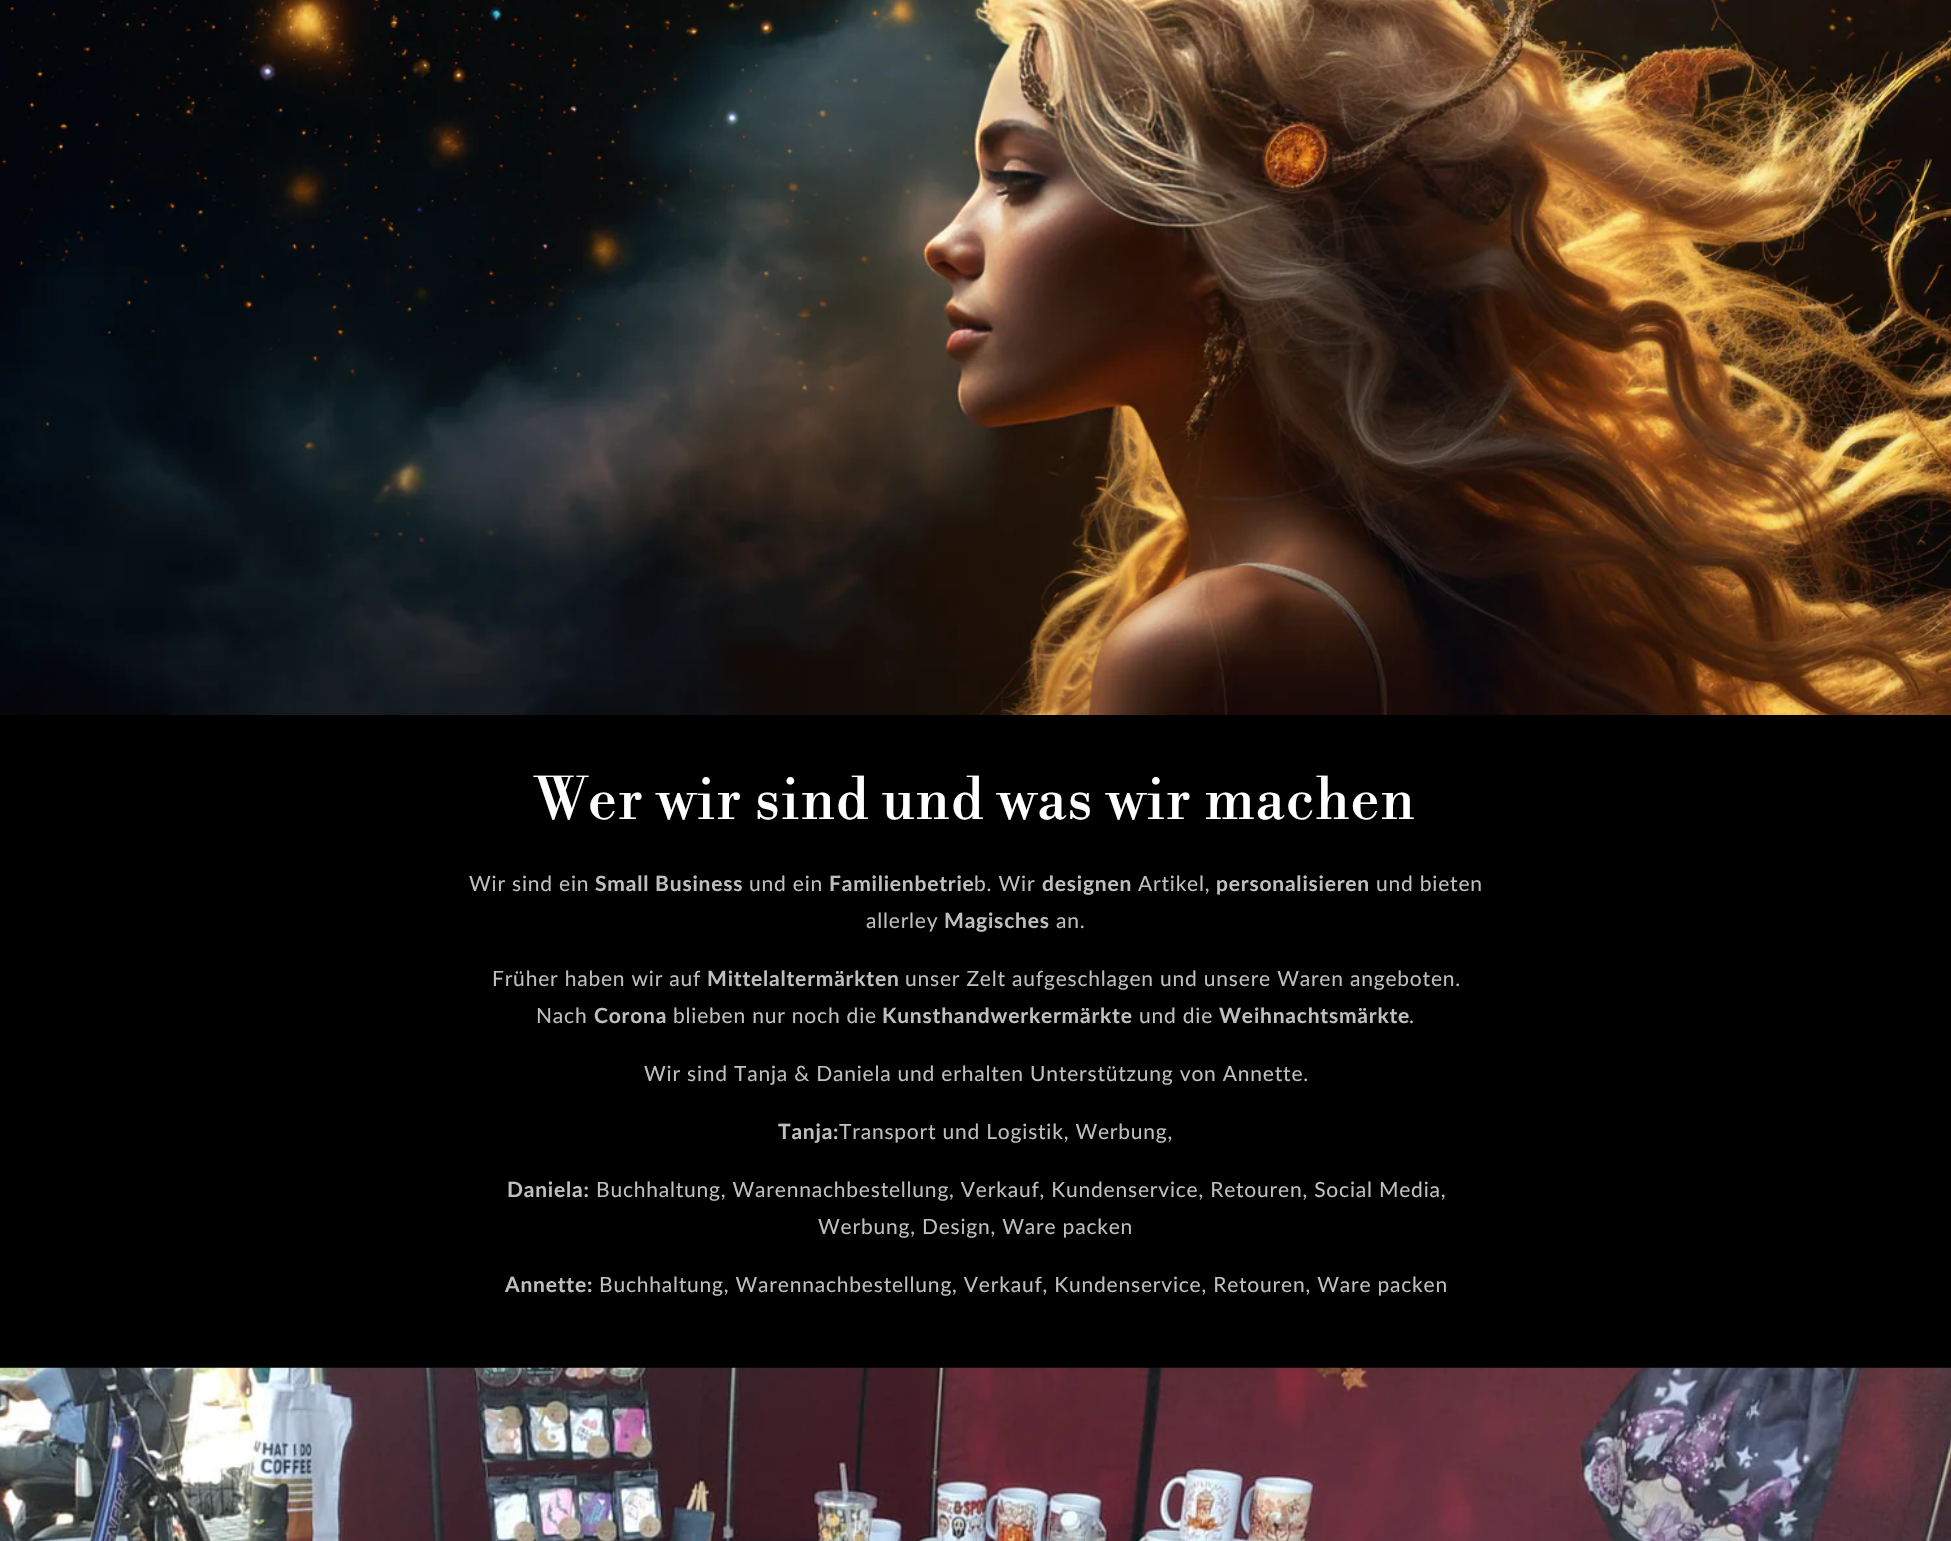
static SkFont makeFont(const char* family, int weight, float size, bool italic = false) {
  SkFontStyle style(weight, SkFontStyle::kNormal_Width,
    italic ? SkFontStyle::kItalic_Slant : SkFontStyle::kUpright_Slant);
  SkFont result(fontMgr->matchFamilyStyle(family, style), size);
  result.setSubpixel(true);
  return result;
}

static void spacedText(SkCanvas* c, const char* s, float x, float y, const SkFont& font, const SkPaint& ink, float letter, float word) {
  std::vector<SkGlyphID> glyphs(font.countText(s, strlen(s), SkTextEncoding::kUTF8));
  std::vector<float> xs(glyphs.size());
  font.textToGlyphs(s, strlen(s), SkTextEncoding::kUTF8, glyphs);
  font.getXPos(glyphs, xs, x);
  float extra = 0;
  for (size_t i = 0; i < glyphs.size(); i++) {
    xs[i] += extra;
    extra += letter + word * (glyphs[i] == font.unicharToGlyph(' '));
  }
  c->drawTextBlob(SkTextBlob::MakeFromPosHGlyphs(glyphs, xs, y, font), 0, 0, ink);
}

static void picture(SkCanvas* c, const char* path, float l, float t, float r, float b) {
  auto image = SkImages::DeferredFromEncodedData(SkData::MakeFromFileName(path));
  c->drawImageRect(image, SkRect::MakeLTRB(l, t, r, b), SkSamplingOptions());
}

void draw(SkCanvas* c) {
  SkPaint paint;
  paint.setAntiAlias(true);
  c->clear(0xff000000);
  picture(c, "img_01.png", 0, 0, 1951, 715);
  SkFont face1 = makeFont("Libre Bodoni", 400, 57.5f);
  paint.setColor(0xffffffff);
  spacedText(c, "Wer wir sind und was wir machen", 535, 819, face1, paint, 0.85f, 0);
  SkFont face2 = makeFont("Lato", 400, 21);
  paint.setColor(0xffbfbfbf);
  spacedText(c, "Wir sind ein", 469, 891, face2, paint, 0.8f, 0);
  SkFont face3 = makeFont("Lato", 700, 21);
  spacedText(c, "Small Business", 595, 891, face3, paint, 0.8f, 0);
  spacedText(c, "und ein", 749, 891, face2, paint, 0.8f, 0);
  spacedText(c, "Familienbetrie", 829, 891, face3, paint, 0.8f, 0);
  spacedText(c, "b. Wir", 974, 891, face2, paint, 0.8f, 0);
  spacedText(c, "designen", 1042, 891, face3, paint, 0.8f, 0);
  spacedText(c, "Artikel,", 1138, 891, face2, paint, 0.8f, 0);
  spacedText(c, "personalisieren", 1216, 891, face3, paint, 0.8f, 0);
  spacedText(c, "und bieten", 1376, 891, face2, paint, 0.8f, 0);
  spacedText(c, "allerley", 866, 928, face2, paint, 0.8f, 0);
  spacedText(c, "Magisches", 944, 928, face3, paint, 0.8f, 0);
  spacedText(c, "an.", 1056, 928, face2, paint, 0.8f, 0);
  spacedText(c, "Früher haben wir auf", 492, 986, face2, paint, 0.8f, 0);
  spacedText(c, "Mittelaltermärkten", 707, 986, face3, paint, 0.8f, 0);
  spacedText(c, "unser Zelt aufgeschlagen und unsere Waren angeboten.", 905, 986, face2, paint, 0.8f, 0);
  spacedText(c, "Nach", 536, 1023, face2, paint, 0.8f, 0);
  spacedText(c, "Corona", 594, 1023, face3, paint, 0.8f, 0);
  spacedText(c, "blieben nur noch die", 673, 1023, face2, paint, 0.8f, 0);
  spacedText(c, "Kunsthandwerkermärkte", 882, 1023, face3, paint, 0.8f, 0);
  spacedText(c, "und die", 1139, 1023, face2, paint, 0.8f, 0);
  spacedText(c, "Weihnachtsmärkte", 1219, 1023, face3, paint, 0.8f, 0);
  spacedText(c, ".", 1409, 1023, face2, paint, 0.8f, 0);
  spacedText(c, "Wir sind Tanja & Daniela und erhalten Unterstützung von Annette.", 644, 1081, face2, paint, 0.8f, 0);
  spacedText(c, "Tanja:", 778, 1139, face3, paint, 0.8f, 0);
  spacedText(c, "Transport und Logistik, Werbung,", 839, 1139, face2, paint, 0.8f, 0);
  spacedText(c, "Daniela:", 507, 1197, face3, paint, 0.8f, 0);
  spacedText(c, "Buchhaltung, Warennachbestellung, Verkauf, Kundenservice, Retouren, Social Media,", 596, 1197, face2, paint, 0.8f, 0);
  spacedText(c, "Werbung, Design, Ware packen", 818, 1234, face2, paint, 0.8f, 0);
  spacedText(c, "Annette:", 505, 1292, face3, paint, 0.8f, 0);
  spacedText(c, "Buchhaltung, Warennachbestellung, Verkauf, Kundenservice, Retouren, Ware packen", 599, 1292, face2, paint, 0.8f, 0);
  picture(c, "img_02.png", 0, 1367, 1951, 1541);
}
